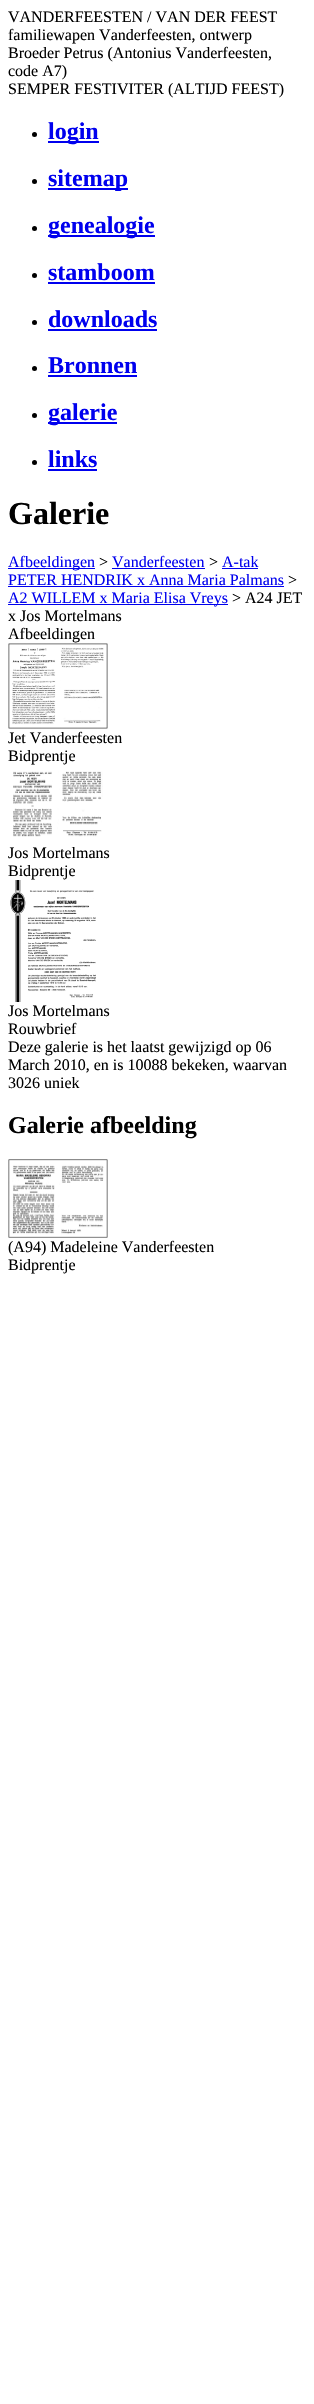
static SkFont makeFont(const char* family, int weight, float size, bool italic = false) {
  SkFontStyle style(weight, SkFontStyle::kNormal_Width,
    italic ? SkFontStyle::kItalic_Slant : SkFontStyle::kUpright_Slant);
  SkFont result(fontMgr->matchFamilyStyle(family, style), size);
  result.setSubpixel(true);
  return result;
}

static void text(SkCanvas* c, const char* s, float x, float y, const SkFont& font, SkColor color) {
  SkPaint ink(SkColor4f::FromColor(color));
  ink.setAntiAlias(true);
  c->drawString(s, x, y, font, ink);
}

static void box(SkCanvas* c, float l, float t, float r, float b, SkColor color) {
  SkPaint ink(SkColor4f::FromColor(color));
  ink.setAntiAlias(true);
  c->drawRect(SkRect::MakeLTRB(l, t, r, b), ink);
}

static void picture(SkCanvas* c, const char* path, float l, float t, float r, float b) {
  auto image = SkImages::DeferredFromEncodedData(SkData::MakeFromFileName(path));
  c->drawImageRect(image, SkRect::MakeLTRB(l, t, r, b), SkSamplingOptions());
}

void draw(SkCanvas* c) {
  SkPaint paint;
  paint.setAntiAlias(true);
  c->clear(0xffffffff);
  SkFont face1 = makeFont("Liberation Serif", 400, 16);
  text(c, "VANDERFEESTEN / VAN DER FEEST", 8, 22, face1, 0xff000000);
  text(c, "familiewapen Vanderfeesten, ontwerp", 8, 40, face1, 0xff000000);
  text(c, "Broeder Petrus (Antonius Vanderfeesten,", 8, 58, face1, 0xff000000);
  text(c, "code A7)", 8, 76, face1, 0xff000000);
  text(c, "SEMPER FESTIVITER (ALTIJD FEEST)", 8, 94, face1, 0xff000000);
  paint.setColor(0xff000000);
  c->drawCircle(34.5f, 134.5f, 2.5f, paint);
  box(c, 48, 141, 99, 143, 0xff0000ee);
  SkFont face2 = makeFont("Liberation Serif", 700, 24);
  text(c, "login", 48, 139, face2, 0xff0000ee);
  c->drawCircle(34.5f, 181.5f, 2.5f, paint);
  box(c, 48, 188, 128, 190, 0xff0000ee);
  text(c, "sitemap", 48, 186, face2, 0xff0000ee);
  c->drawCircle(34.5f, 228.5f, 2.5f, paint);
  box(c, 48, 235, 155, 237, 0xff0000ee);
  text(c, "genealogie", 48, 233, face2, 0xff0000ee);
  c->drawCircle(34.5f, 275.5f, 2.5f, paint);
  text(c, "stamboom", 48, 280, face2, 0xff0000ee);
  box(c, 48, 282, 155, 284, 0xff0000ee);
  c->drawCircle(34.5f, 322.5f, 2.5f, paint);
  text(c, "downloads", 48, 327, face2, 0xff0000ee);
  box(c, 48, 329, 157, 331, 0xff0000ee);
  c->drawCircle(34.5f, 368.5f, 2.5f, paint);
  text(c, "Bronnen", 48, 373, face2, 0xff0000ee);
  box(c, 48, 375, 137, 377, 0xff0000ee);
  c->drawCircle(34.5f, 415.5f, 2.5f, paint);
  box(c, 48, 422, 117, 424, 0xff0000ee);
  text(c, "galerie", 48, 420, face2, 0xff0000ee);
  c->drawCircle(34.5f, 462.5f, 2.5f, paint);
  text(c, "links", 48, 467, face2, 0xff0000ee);
  box(c, 48, 469, 97, 471, 0xff0000ee);
  SkFont face3 = makeFont("Liberation Serif", 700, 32);
  text(c, "Galerie", 8, 524, face3, 0xff000000);
  box(c, 8, 568, 95, 569, 0xff0000ee);
  text(c, "Afbeeldingen", 8, 567, face1, 0xff0000ee);
  text(c, ">", 99, 567, face1, 0xff000000);
  text(c, "Vanderfeesten", 112, 567, face1, 0xff0000ee);
  box(c, 112, 568, 205, 569, 0xff0000ee);
  text(c, ">", 209, 567, face1, 0xff000000);
  text(c, "A-tak", 222, 567, face1, 0xff0000ee);
  box(c, 222, 568, 258, 569, 0xff0000ee);
  text(c, "PETER HENDRIK x Anna Maria Palmans", 8, 585, face1, 0xff0000ee);
  box(c, 8, 586, 284, 587, 0xff0000ee);
  text(c, ">", 288, 585, face1, 0xff000000);
  box(c, 8, 604, 228, 605, 0xff0000ee);
  text(c, "A2 WILLEM x Maria Elisa Vreys", 8, 603, face1, 0xff0000ee);
  text(c, "> A24 JET", 232, 603, face1, 0xff000000);
  text(c, "x Jos Mortelmans", 8, 621, face1, 0xff000000);
  text(c, "Afbeeldingen", 8, 639, face1, 0xff000000);
  picture(c, "img_01.png", 8, 643, 108, 729);
  text(c, "Jet Vanderfeesten", 8, 743, face1, 0xff000000);
  text(c, "Bidprentje", 8, 761, face1, 0xff000000);
  picture(c, "img_02.png", 13, 771, 103, 837);
  text(c, "Jos Mortelmans", 8, 858, face1, 0xff000000);
  text(c, "Bidprentje", 8, 876, face1, 0xff000000);
  picture(c, "img_03.png", 10, 880, 96, 1002);
  text(c, "Jos Mortelmans", 8, 1016, face1, 0xff000000);
  text(c, "Rouwbrief", 8, 1034, face1, 0xff000000);
  text(c, "Deze galerie is het laatst gewijzigd op 06", 8, 1052, face1, 0xff000000);
  text(c, "March 2010, en is 10088 bekeken, waarvan", 8, 1070, face1, 0xff000000);
  text(c, "3026 uniek", 8, 1088, face1, 0xff000000);
  text(c, "Galerie afbeelding", 8, 1133, face2, 0xff000000);
  picture(c, "img_04.png", 8, 1159, 108, 1238);
  text(c, "(A94) Madeleine Vanderfeesten", 8, 1252, face1, 0xff000000);
  text(c, "Bidprentje", 8, 1270, face1, 0xff000000);
}
